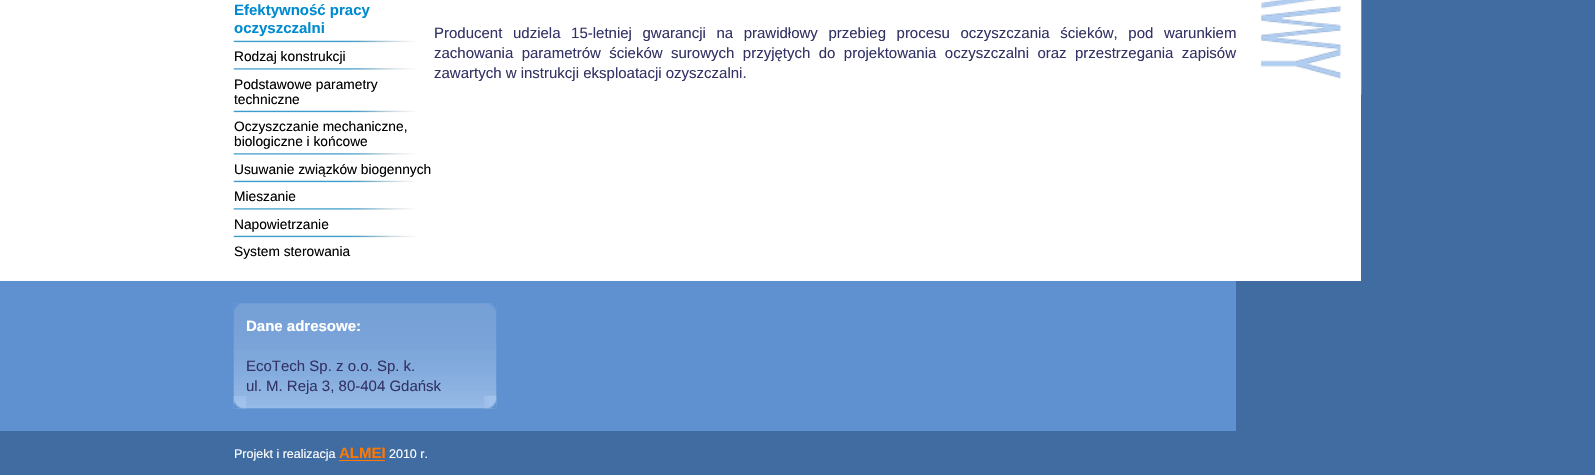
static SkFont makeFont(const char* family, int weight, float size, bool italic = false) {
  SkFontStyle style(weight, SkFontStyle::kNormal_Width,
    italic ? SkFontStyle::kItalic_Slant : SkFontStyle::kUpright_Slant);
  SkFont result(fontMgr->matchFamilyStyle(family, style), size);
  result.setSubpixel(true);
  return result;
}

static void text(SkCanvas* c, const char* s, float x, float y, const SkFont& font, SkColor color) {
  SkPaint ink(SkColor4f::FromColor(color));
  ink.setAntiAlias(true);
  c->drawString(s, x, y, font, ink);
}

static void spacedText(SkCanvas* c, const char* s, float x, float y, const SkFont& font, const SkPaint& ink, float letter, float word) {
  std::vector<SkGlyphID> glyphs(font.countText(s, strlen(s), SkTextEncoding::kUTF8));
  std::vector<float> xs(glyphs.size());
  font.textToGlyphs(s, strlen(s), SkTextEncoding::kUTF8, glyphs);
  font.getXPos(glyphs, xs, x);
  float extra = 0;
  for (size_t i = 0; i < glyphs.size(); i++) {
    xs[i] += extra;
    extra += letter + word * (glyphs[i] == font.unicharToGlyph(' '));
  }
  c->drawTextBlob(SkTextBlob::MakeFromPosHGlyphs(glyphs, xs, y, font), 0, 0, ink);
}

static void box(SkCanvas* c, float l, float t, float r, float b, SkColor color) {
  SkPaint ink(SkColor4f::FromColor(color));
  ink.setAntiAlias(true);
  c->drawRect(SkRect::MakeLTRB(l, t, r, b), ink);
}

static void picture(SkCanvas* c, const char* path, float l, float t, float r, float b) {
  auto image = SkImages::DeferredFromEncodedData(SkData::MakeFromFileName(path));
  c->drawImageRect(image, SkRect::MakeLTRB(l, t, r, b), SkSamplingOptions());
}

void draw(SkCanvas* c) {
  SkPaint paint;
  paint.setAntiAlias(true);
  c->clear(0xffffffff);
  SkFont face1 = makeFont("Liberation Sans", 700, 15);
  text(c, "Efektywność pracy", 234, 15, face1, 0xff008bd0);
  text(c, "oczyszczalni", 234, 33, face1, 0xff008bd0);
  picture(c, "img_01.png", 233, 40, 417, 43);
  SkFont face2 = makeFont("Liberation Sans", 400, 13.75f);
  text(c, "Rodzaj konstrukcji", 234, 61, face2, 0xff000000);
  picture(c, "img_02.png", 233, 68, 416, 70);
  text(c, "Podstawowe parametry", 234, 89, face2, 0xff000000);
  text(c, "techniczne", 234, 104, face2, 0xff000000);
  picture(c, "img_01.png", 233, 110, 417, 113);
  text(c, "Oczyszczanie mechaniczne,", 234, 131, face2, 0xff000000);
  text(c, "biologiczne i końcowe", 234, 146, face2, 0xff000000);
  picture(c, "img_02.png", 233, 153, 416, 155);
  text(c, "Usuwanie związków biogennych", 234, 174, face2, 0xff000000);
  picture(c, "img_01.png", 233, 180, 417, 183);
  text(c, "Mieszanie", 234, 201, face2, 0xff000000);
  picture(c, "img_02.png", 233, 208, 416, 210);
  text(c, "Napowietrzanie", 234, 229, face2, 0xff000000);
  picture(c, "img_01.png", 233, 235, 417, 238);
  text(c, "System sterowania", 234, 256, face2, 0xff000000);
  SkFont face3 = makeFont("Liberation Sans", 400, 15);
  paint.setColor(0xff333366);
  spacedText(c, "Producent udziela 15-letniej gwarancji na prawidłowy przebieg procesu oczyszczania ścieków, pod warunkiem", 434, 38, face3, paint, 0, 6.4f);
  spacedText(c, "zachowania parametrów ścieków surowych przyjętych do projektowania oczyszczalni oraz przestrzegania zapisów", 434, 58, face3, paint, 0, 4.25f);
  text(c, "zawartych w instrukcji eksploatacji ozyszczalni.", 434, 78, face3, 0xff333366);
  box(c, 1361, 0, 1595, 281, 0xff406ca1);
  picture(c, "img_03.png", 1236, 0, 1362, 95);
  box(c, 0, 281, 1236, 431, 0xff5f91d0);
  picture(c, "img_04.png", 233, 303, 497, 409);
  picture(c, "img_05.png", 234, 303, 240, 311);
  picture(c, "img_06.png", 484, 303, 496, 311);
  text(c, "Dane adresowe:", 246, 331, face1, 0xffffffff);
  text(c, "EcoTech Sp. z o.o. Sp. k.", 246, 371, face3, 0xff333366);
  text(c, "ul. M. Reja 3, 80-404 Gdańsk", 246, 391, face3, 0xff333366);
  picture(c, "img_07.png", 233, 396, 246, 409);
  picture(c, "img_08.png", 484, 395, 497, 409);
  box(c, 1236, 281, 1595, 431, 0xff406ca1);
  box(c, 0, 431, 1595, 475, 0xff406ca1);
  SkFont face4 = makeFont("Liberation Sans", 400, 12.5f);
  text(c, "Projekt i realizacja", 234, 458, face4, 0xffffffff);
  box(c, 339, 460, 385, 461, 0xffff7800);
  text(c, "ALMEI", 339, 458, face1, 0xffff7800);
  text(c, "2010 r.", 389, 458, face4, 0xffffffff);
}
